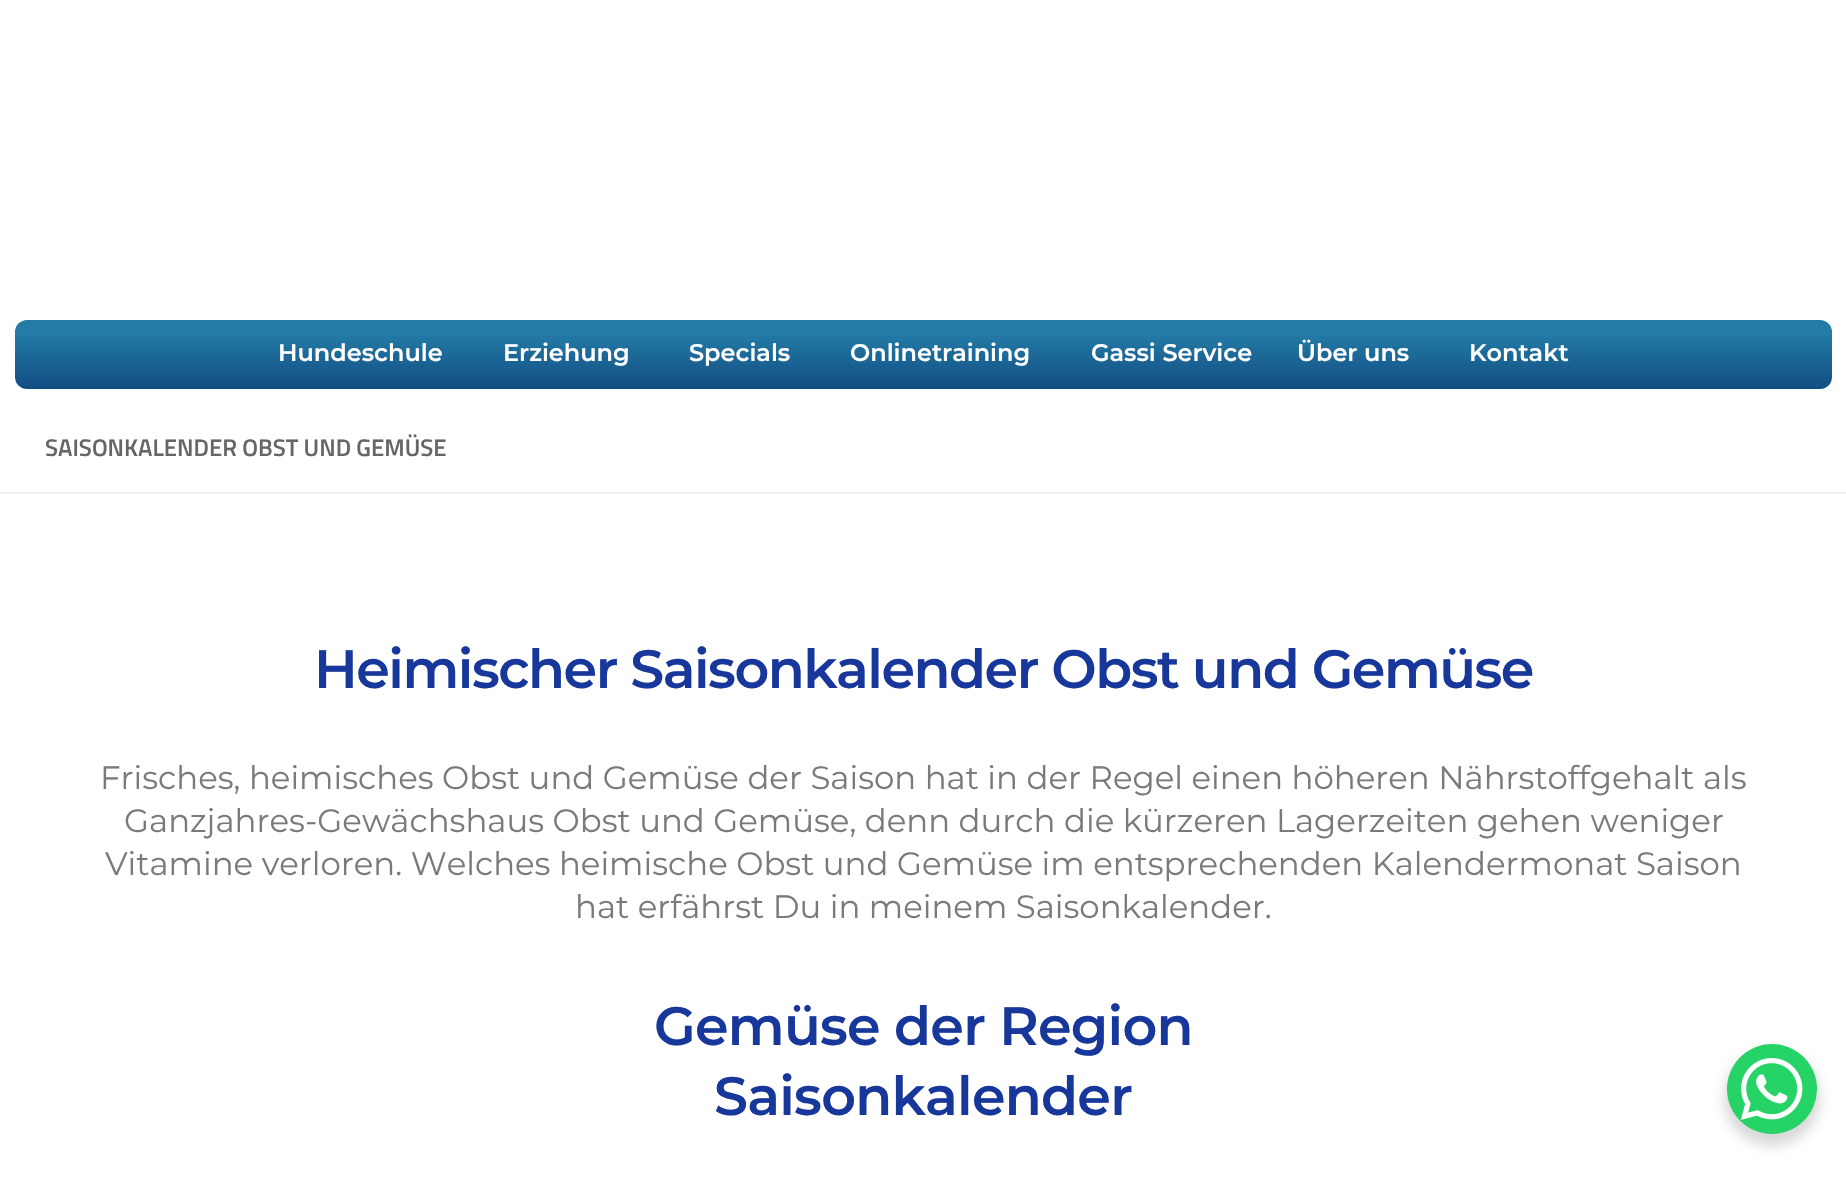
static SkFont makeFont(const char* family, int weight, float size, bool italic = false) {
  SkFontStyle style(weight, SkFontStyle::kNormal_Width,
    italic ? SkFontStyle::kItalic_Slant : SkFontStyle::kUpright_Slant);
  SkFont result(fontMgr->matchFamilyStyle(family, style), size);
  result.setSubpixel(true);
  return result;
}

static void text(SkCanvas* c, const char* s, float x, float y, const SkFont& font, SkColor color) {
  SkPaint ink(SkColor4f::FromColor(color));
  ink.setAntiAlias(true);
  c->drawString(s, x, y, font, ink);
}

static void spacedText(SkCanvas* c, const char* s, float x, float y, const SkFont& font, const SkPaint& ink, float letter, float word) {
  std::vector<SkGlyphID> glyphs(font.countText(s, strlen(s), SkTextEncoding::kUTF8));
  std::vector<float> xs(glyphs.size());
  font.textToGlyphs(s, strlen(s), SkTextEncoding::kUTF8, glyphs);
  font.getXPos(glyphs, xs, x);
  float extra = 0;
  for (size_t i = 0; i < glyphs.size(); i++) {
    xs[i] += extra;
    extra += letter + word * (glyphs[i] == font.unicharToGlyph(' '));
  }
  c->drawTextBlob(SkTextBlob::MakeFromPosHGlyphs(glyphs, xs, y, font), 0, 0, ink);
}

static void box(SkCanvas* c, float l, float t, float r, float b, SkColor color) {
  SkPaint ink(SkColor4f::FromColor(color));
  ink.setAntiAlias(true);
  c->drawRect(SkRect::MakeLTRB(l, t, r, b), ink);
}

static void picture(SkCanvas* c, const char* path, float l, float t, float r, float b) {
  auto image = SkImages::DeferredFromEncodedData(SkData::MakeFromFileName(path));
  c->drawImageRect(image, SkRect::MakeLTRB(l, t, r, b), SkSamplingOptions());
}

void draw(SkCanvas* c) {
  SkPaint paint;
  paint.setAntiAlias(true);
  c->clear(0xffffffff);
  {
    const SkColor colors[] = {0xff237ba6, 0xff124d83};
    const float stops[] = {0.2f, 1};
    const SkPoint ends[] = {{923, 319}, {923, 389}};
    paint.setShader(SkGradientShader::MakeLinear(ends, colors, stops, 2, SkTileMode::kClamp));
    paint.setAlpha(255);
  }
  c->drawRoundRect(SkRect::MakeLTRB(15, 320, 1832, 389), 12, 12, paint);
  SkFont face1 = makeFont("Montserrat", 600, 24);
  text(c, "Hundeschule", 278, 361, face1, 0xffffffff);
  text(c, "Erziehung", 503, 361, face1, 0xffffffff);
  text(c, "Specials", 689, 361, face1, 0xffffffff);
  text(c, "Onlinetraining", 850, 361, face1, 0xffffffff);
  text(c, "Gassi Service", 1091, 361, face1, 0xffffffff);
  text(c, "Über uns", 1297, 361, face1, 0xffffffff);
  text(c, "Kontakt", 1469, 361, face1, 0xffffffff);
  box(c, 0, 492, 1846, 494, 0xffeeeeee);
  SkFont face2 = makeFont("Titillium", 600, 24);
  text(c, "SAISONKALENDER OBST UND GEMÜSE", 45, 456, face2, 0xff666666);
  SkFont face3 = makeFont("Montserrat", 600, 54);
  paint.setShader(nullptr);
  paint.setColor(0xff18379b);
  spacedText(c, "Heimischer Saisonkalender Obst und Gemüse", 314, 688, face3, paint, -1.5f, 0);
  SkFont face4 = makeFont("Montserrat", 400, 32.4f);
  text(c, "Frisches, heimisches Obst und Gemüse der Saison hat in der Regel einen höheren Nährstoffgehalt als", 100, 789, face4, 0xff7a7a7a);
  text(c, "Ganzjahres-Gewächshaus Obst und Gemüse, denn durch die kürzeren Lagerzeiten gehen weniger", 124, 832, face4, 0xff7a7a7a);
  text(c, "Vitamine verloren. Welches heimische Obst und Gemüse im entsprechenden Kalendermonat Saison", 105, 875, face4, 0xff7a7a7a);
  text(c, "hat erfährst Du in meinem Saisonkalender.", 575, 918, face4, 0xff7a7a7a);
  spacedText(c, "Gemüse der Region", 654, 1045, face3, paint, -0.75f, 0);
  spacedText(c, "Saisonkalender", 714, 1115, face3, paint, -0.75f, 0);
  paint.setColor(0x26000000);
  paint.setMaskFilter(SkMaskFilter::MakeBlur(kNormal_SkBlurStyle, 6));
  c->drawRoundRect(SkRect::MakeLTRB(1724, 1050, 1820, 1146), 48, 48, paint);
  paint.setMaskFilter(nullptr);
  paint.setColor(0xff25d366);
  c->drawCircle(1772, 1089, 45, paint);
  picture(c, "img_01.png", 1740, 1058, 1803, 1120);
}
